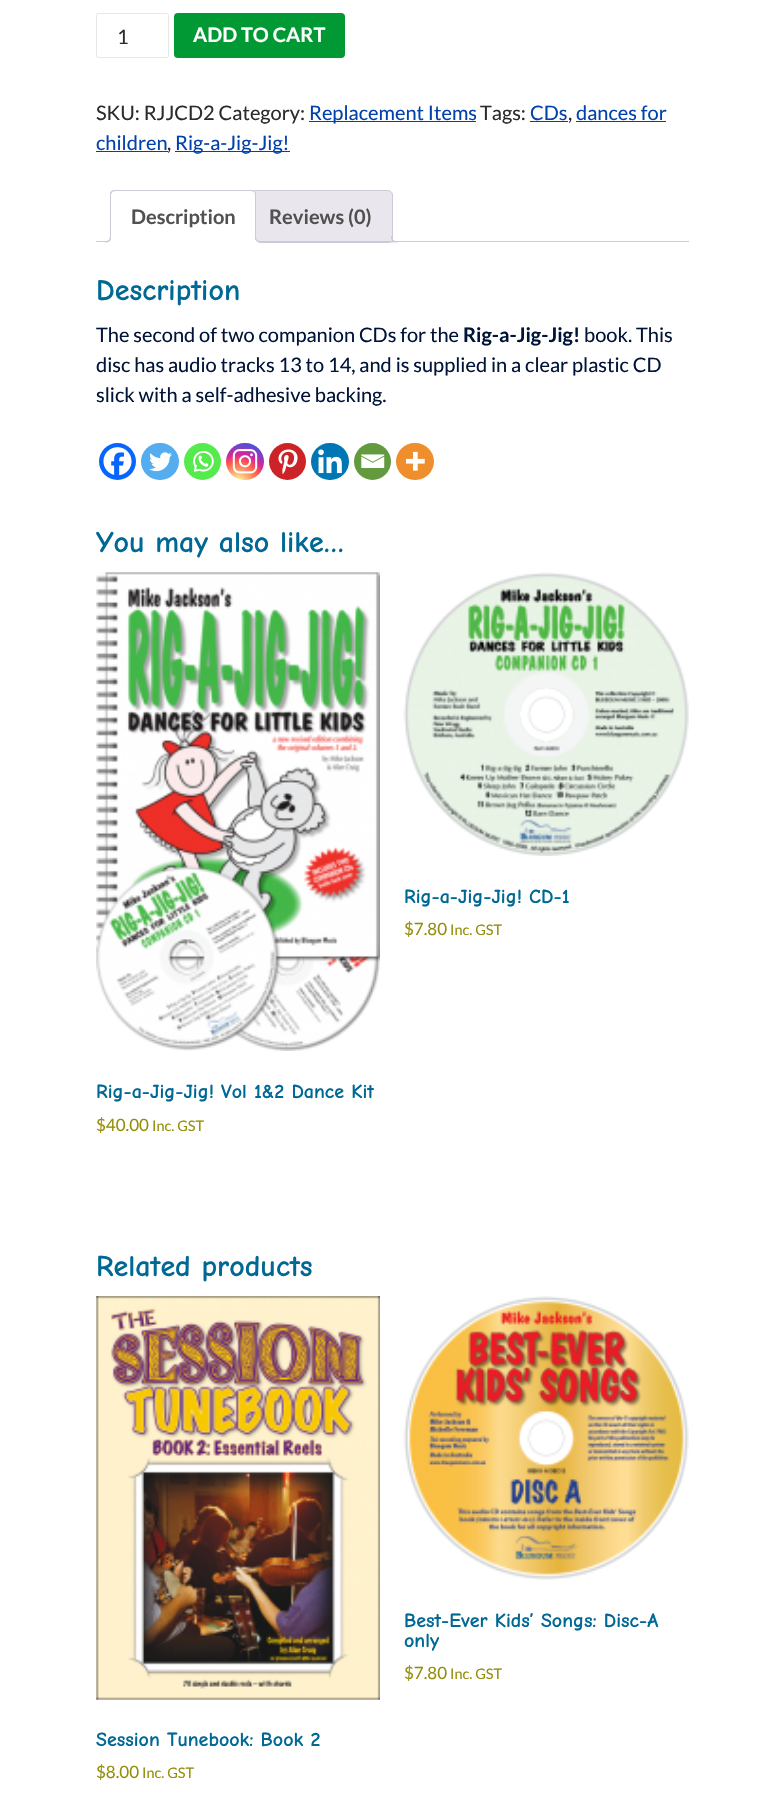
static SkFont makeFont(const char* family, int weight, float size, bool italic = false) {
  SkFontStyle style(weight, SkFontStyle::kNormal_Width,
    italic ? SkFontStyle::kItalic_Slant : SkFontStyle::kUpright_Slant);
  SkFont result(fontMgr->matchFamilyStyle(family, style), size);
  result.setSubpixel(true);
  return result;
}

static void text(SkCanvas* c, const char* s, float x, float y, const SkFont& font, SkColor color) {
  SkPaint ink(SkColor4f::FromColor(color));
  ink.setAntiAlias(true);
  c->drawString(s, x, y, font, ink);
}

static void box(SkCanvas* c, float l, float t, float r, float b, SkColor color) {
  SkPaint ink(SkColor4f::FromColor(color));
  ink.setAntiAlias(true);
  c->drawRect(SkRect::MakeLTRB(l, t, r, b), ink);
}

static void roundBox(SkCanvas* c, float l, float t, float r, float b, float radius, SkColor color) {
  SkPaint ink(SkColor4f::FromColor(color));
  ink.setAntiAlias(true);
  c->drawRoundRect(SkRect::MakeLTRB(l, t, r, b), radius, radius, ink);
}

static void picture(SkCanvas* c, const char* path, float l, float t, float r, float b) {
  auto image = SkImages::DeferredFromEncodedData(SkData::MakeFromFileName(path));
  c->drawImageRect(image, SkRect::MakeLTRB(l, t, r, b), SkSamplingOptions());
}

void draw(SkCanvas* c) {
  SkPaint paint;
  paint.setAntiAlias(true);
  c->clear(0xffffffff);
  paint.setStyle(SkPaint::kStroke_Style);
  paint.setStrokeWidth(1);
  paint.setColor(0xffe6e6e6);
  c->drawRoundRect(SkRect::MakeLTRB(96.5f, 13.5f, 168.5f, 57.5f), 2, 2, paint);
  SkFont face1 = makeFont("Lato", 400, 20);
  text(c, "1", 117, 44, face1, 0xff2b2b2b);
  roundBox(c, 174, 13, 345, 58, 4, 0xff009933);
  SkFont face2 = makeFont("Lato", 700, 20);
  text(c, "ADD TO CART", 193, 42, face2, 0xffffffff);
  text(c, "SKU: RJJCD2 Category:", 96, 120, face1, 0xff2b2b2b);
  box(c, 309, 121, 476, 122, 0xff0141ab);
  text(c, "Replacement Items", 309, 120, face1, 0xff0141ab);
  text(c, "Tags:", 480, 120, face1, 0xff2b2b2b);
  text(c, "CDs", 530, 120, face1, 0xff0141ab);
  text(c, ",", 568, 120, face1, 0xff2b2b2b);
  box(c, 530, 121, 568, 122, 0xff0141ab);
  box(c, 576, 121, 666, 122, 0xff0141ab);
  text(c, "dances for", 576, 120, face1, 0xff0141ab);
  text(c, "children", 96, 150, face1, 0xff0141ab);
  text(c, ",", 167, 150, face1, 0xff2b2b2b);
  box(c, 96, 151, 168, 152, 0xff0141ab);
  box(c, 175, 151, 290, 152, 0xff0141ab);
  text(c, "Rig-a-Jig-Jig!", 175, 150, face1, 0xff0141ab);
  paint.setStyle(SkPaint::kFill_Style);
  paint.setColor(0xffe9e6ed);
  c->drawPath(SkPathBuilder().moveTo(253, 190.5f).lineTo(388, 190.5f).cubicTo(390.5f, 190.5f, 392.5f, 192.5f, 392.5f, 195).lineTo(392.5f, 242.5f).lineTo(248.5f, 242.5f).lineTo(248.5f, 195).cubicTo(248.5f, 192.5f, 250.5f, 190.5f, 253, 190.5f).close().detach(), paint);
  paint.setStyle(SkPaint::kStroke_Style);
  paint.setColor(0xffcfc8d8);
  c->drawPath(SkPathBuilder().moveTo(253, 190.5f).lineTo(388, 190.5f).cubicTo(390.5f, 190.5f, 392.5f, 192.5f, 392.5f, 195).lineTo(392.5f, 242.5f).lineTo(248.5f, 242.5f).lineTo(248.5f, 195).cubicTo(248.5f, 192.5f, 250.5f, 190.5f, 253, 190.5f).close().detach(), paint);
  c->save();
  c->clipRect(SkRect::MakeLTRB(96, 190, 689, 243));
  paint.setStyle(SkPaint::kFill_Style);
  paint.setColor(0xffe9e6ed);
  c->drawPath(SkPathBuilder().moveTo(389, 239).cubicTo(389, 243, 391, 245, 395, 245).lineTo(395, 242.5f).cubicTo(393.5f, 242, 392, 240.5f, 391.5f, 239).close().detach(), paint);
  c->restore();
  paint.setColor(0xffcfc8d8);
  c->drawPath(SkPathBuilder(SkPathFillType::kEvenOdd).moveTo(391, 236).lineTo(397.5f, 236).lineTo(397.5f, 242.5f).cubicTo(394.5f, 242.5f, 391, 241, 391, 237.5f).close().moveTo(392.5f, 236).lineTo(397.5f, 236).lineTo(397.5f, 241).cubicTo(395, 241, 392.5f, 240.5f, 392.5f, 237.5f).close().detach(), paint);
  box(c, 96, 241, 689, 242, 0xffcfc8d8);
  paint.setColor(0xffffffff);
  c->drawPath(SkPathBuilder().moveTo(115, 190).lineTo(251, 190).cubicTo(254, 190, 256, 192, 256, 195).lineTo(256, 243).lineTo(110, 243).lineTo(110, 195).cubicTo(110, 192, 112, 190, 115, 190).close().detach(), paint);
  paint.setColor(0xffcfc8d8);
  c->drawPath(SkPathBuilder().moveTo(115, 190).cubicTo(114, 190, 112, 190, 111, 191).lineTo(112, 192).lineTo(115, 191).lineTo(251, 191).lineTo(254, 192).lineTo(255, 192).cubicTo(254, 191, 253, 190, 251, 190).close().detach(), paint);
  c->drawPath(SkPathBuilder().moveTo(255, 192).cubicTo(256, 192, 256, 194, 256, 195).lineTo(256, 242).lineTo(255, 241).lineTo(255, 195).cubicTo(255, 194, 255, 193, 254, 192).close().detach(), paint);
  paint.setColor(0xffffffff);
  c->drawPath(SkPathBuilder().moveTo(256, 242).lineTo(110, 242).lineTo(112, 241).lineTo(255, 241).close().detach(), paint);
  paint.setColor(0xffcfc8d8);
  c->drawPath(SkPathBuilder().moveTo(110, 195).lineTo(110, 242).lineTo(112, 241).lineTo(111, 241).lineTo(111, 195).cubicTo(111, 194, 112, 193, 112, 192).lineTo(111, 191).cubicTo(110, 192, 110, 194, 110, 195).close().detach(), paint);
  text(c, "Description", 131, 224, face2, 0xff515151);
  c->save();
  c->clipRect(SkRect::MakeLTRB(96, 190, 689, 243));
  paint.setColor(0xffffffff);
  c->drawPath(SkPathBuilder().moveTo(108, 242).lineTo(108, 245).cubicTo(112, 245, 114, 243, 114, 239).lineTo(111, 239).cubicTo(110.5f, 240.5f, 109.5f, 241.5f, 108, 242).close().detach(), paint);
  c->restore();
  paint.setColor(0xffcfc8d8);
  c->drawPath(SkPathBuilder(SkPathFillType::kEvenOdd).moveTo(105, 236).lineTo(111, 236).cubicTo(111, 240.5f, 109.5f, 242.5f, 105, 242.5f).close().moveTo(105, 236).lineTo(110, 236).cubicTo(110, 240, 108.5f, 241, 105, 241).close().detach(), paint);
  c->save();
  c->clipRect(SkRect::MakeLTRB(96, 190, 689, 243));
  paint.setColor(0xffffffff);
  c->drawPath(SkPathBuilder().moveTo(253, 239).cubicTo(253, 243, 255, 245, 259, 245).lineTo(259, 242.5f).cubicTo(257, 242, 256, 240.5f, 255, 239).close().detach(), paint);
  c->restore();
  paint.setColor(0xffcfc8d8);
  c->drawPath(SkPathBuilder(SkPathFillType::kEvenOdd).moveTo(255, 236).lineTo(261, 236).lineTo(261, 242.5f).cubicTo(258, 242.5f, 255, 241, 255, 237.5f).close().moveTo(256, 236).lineTo(261, 236).lineTo(261, 241).cubicTo(259, 241, 256, 240.5f, 256, 237.5f).close().detach(), paint);
  text(c, "Reviews (0)", 269, 224, face2, 0xff515151);
  SkFont face3 = makeFont("Comic Neue", 700, 30);
  text(c, "Description", 96, 300, face3, 0xff006894);
  text(c, "The second of two companion CDs for the", 96, 342, face1, 0xff001338);
  text(c, "Rig-a-Jig-Jig!", 463, 342, face2, 0xff001338);
  text(c, "book. This", 584, 342, face1, 0xff001338);
  text(c, "disc has audio tracks 13 to 14, and is supplied in a clear plastic CD", 96, 372, face1, 0xff001338);
  text(c, "slick with a self-adhesive backing.", 96, 402, face1, 0xff001338);
  paint.setColor(0xff0765fe);
  c->drawCircle(117.5f, 461.5f, 18.5f, paint);
  picture(c, "img_01.png", 103, 447, 132, 476);
  roundBox(c, 141, 443, 179, 480, 18.5f, 0xff55acee);
  picture(c, "img_02.png", 149, 452, 172, 472);
  paint.setColor(0xff55eb4c);
  c->drawCircle(202.5f, 461.5f, 18.5f, paint);
  picture(c, "img_03.png", 193, 450, 214, 472);
  {
    const SkColor colors[] = {0xfffdf497, 0xfffdf497, 0xfffd5949, 0xffd6249f, 0xff285aeb};
    const float stops[] = {0, 0.05f, 0.45f, 0.6f, 0.9f};
    paint.setShader(SkGradientShader::MakeRadial({238, 483}, 48, colors, stops, 5, SkTileMode::kClamp));
    paint.setAlpha(255);
  }
  c->drawRoundRect(SkRect::MakeLTRB(226, 443, 264, 480), 18.5f, 18.5f, paint);
  picture(c, "img_04.png", 232, 449, 258, 474);
  paint.setShader(nullptr);
  paint.setColor(0xffcc2329);
  c->drawCircle(287.5f, 461.5f, 18.5f, paint);
  picture(c, "img_05.png", 278, 449, 298, 474);
  roundBox(c, 311, 443, 349, 480, 18.5f, 0xff0077b5);
  picture(c, "img_06.png", 318, 449, 342, 474);
  paint.setColor(0xff649a3f);
  c->drawCircle(372.5f, 461.5f, 18.5f, paint);
  picture(c, "img_07.png", 361, 454, 385, 468);
  roundBox(c, 396, 443, 434, 480, 18.5f, 0xffee8e2d);
  picture(c, "img_08.png", 405, 451, 425, 471);
  text(c, "You may also like…", 96, 552, face3, 0xff006894);
  picture(c, "img_09.png", 403, 572, 689, 856);
  SkFont face4 = makeFont("Comic Neue", 700, 20);
  text(c, "Rig-a-Jig-Jig! CD-1", 404, 903, face4, 0xff006894);
  SkFont face5 = makeFont("Lato", 400, 17);
  text(c, "$7.80", 404, 935, face5, 0xff958e09);
  SkFont face6 = makeFont("Lato", 400, 14.5f);
  text(c, "Inc. GST", 450, 935, face6, 0xff958e09);
  picture(c, "img_10.png", 96, 572, 380, 1051);
  text(c, "Rig-a-Jig-Jig! Vol 1&2 Dance Kit", 96, 1098, face4, 0xff006894);
  text(c, "$40.00", 96, 1131, face5, 0xff958e09);
  text(c, "Inc. GST", 152, 1131, face6, 0xff958e09);
  text(c, "Related products", 96, 1276, face3, 0xff006894);
  picture(c, "img_11.png", 403, 1296, 689, 1580);
  text(c, "Best-Ever Kids’ Songs: Disc-A", 404, 1627, face4, 0xff006894);
  text(c, "only", 404, 1647, face4, 0xff006894);
  text(c, "$7.80", 404, 1679, face5, 0xff958e09);
  text(c, "Inc. GST", 450, 1679, face6, 0xff958e09);
  picture(c, "img_12.png", 96, 1296, 380, 1700);
  text(c, "Session Tunebook: Book 2", 96, 1746, face4, 0xff006894);
  text(c, "$8.00", 96, 1778, face5, 0xff958e09);
  text(c, "Inc. GST", 142, 1778, face6, 0xff958e09);
}
